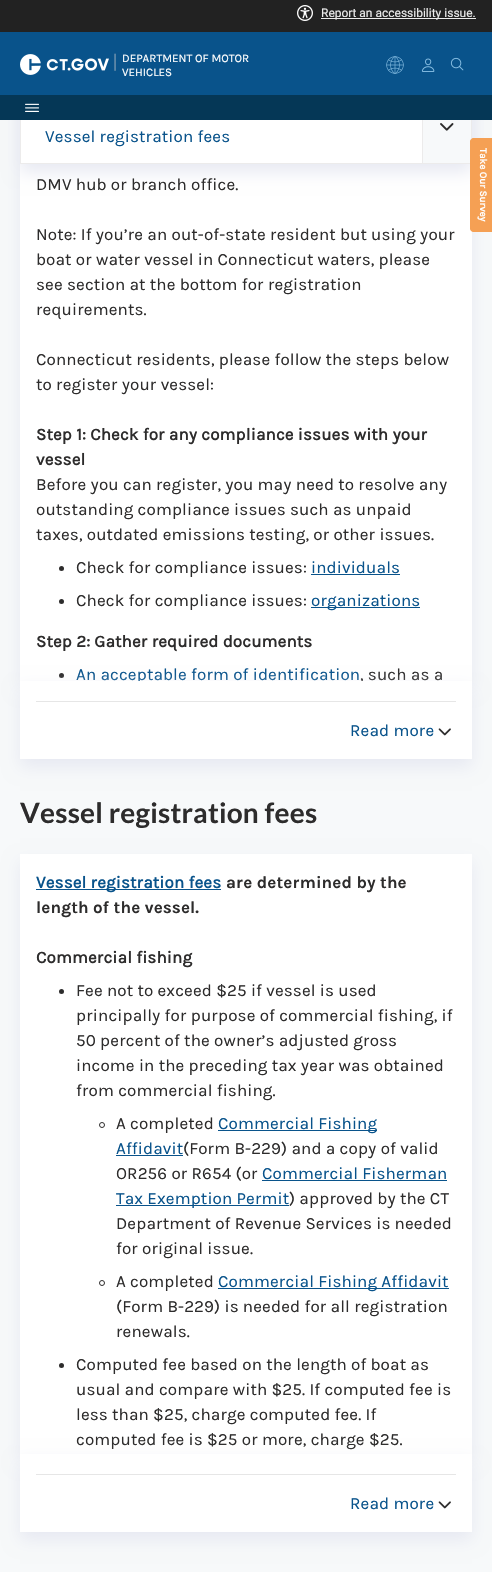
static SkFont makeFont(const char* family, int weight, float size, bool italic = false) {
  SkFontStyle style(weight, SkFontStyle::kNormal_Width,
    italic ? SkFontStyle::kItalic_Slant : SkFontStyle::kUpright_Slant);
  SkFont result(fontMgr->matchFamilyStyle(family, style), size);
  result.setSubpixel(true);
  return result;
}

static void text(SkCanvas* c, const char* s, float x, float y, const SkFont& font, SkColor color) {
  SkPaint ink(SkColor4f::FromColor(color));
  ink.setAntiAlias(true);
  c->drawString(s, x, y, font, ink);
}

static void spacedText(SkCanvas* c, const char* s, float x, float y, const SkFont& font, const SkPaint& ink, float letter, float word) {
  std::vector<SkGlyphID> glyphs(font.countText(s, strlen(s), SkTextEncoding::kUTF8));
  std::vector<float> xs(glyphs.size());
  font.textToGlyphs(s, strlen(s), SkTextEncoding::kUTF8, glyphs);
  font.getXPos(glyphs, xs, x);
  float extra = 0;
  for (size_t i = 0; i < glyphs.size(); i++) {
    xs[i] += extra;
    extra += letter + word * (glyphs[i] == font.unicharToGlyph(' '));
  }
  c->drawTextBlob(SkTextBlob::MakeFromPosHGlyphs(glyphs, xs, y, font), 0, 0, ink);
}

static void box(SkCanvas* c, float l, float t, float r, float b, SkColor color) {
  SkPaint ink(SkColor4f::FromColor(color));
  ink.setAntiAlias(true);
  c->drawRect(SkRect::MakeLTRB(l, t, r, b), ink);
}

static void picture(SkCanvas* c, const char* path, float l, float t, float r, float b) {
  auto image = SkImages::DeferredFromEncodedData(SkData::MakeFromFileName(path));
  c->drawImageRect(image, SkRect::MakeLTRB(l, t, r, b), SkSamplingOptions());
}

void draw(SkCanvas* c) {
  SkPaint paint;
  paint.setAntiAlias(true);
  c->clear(0xfff7f9fa);
  box(c, 0, 0, 492, 32, 0xff222222);
  picture(c, "img_01.png", 297, 5, 313, 21);
  box(c, 321, 18, 476, 19, 0xffececec);
  SkFont face1 = makeFont("Roboto", 400, 12);
  text(c, "Report an accessibility issue.", 321, 17, face1, 0xffececec);
  paint.setColor(0xffe7e9f2);
  paint.setMaskFilter(SkMaskFilter::MakeBlur(kNormal_SkBlurStyle, 8));
  c->drawRect(SkRect::MakeLTRB(20, 89, 472, 689), paint);
  paint.setMaskFilter(nullptr);
  box(c, 20, 164, 472, 681, 0xffffffff);
  paint.setMaskFilter(SkMaskFilter::MakeBlur(kNormal_SkBlurStyle, 8));
  c->drawRect(SkRect::MakeLTRB(20, 96, 472, 172), paint);
  paint.setMaskFilter(nullptr);
  box(c, 21, 120, 422, 163, 0xffffffff);
  paint.setStyle(SkPaint::kStroke_Style);
  paint.setStrokeWidth(1);
  paint.setColor(0xffecebeb);
  c->drawRect(SkRect::MakeLTRB(20.5f, 88.5f, 471.5f, 163.5f), paint);
  box(c, 0, 32, 492, 95, 0xff09538b);
  picture(c, "img_02.png", 20, 54, 109, 75);
  SkFont face2 = makeFont("Roboto", 100, 20);
  text(c, "|", 113, 68, face2, 0xffcccccc);
  SkFont face3 = makeFont("Karla", 400, 11.6f);
  text(c, "DEPARTMENT OF MOTOR", 122, 62, face3, 0xffffffff);
  text(c, "VEHICLES", 122, 76, face3, 0xffffffff);
  picture(c, "img_03.png", 386, 56, 404, 74);
  picture(c, "img_04.png", 421, 58, 435, 72);
  picture(c, "img_05.png", 450, 57, 464, 71);
  box(c, 0, 95, 492, 120, 0xff053756);
  picture(c, "img_06.png", 25, 103, 39, 112);
  SkFont face4 = makeFont("Karla", 400, 17);
  paint.setStyle(SkPaint::kFill_Style);
  paint.setColor(0xff09538b);
  spacedText(c, "Vessel registration fees", 45, 142, face4, paint, 0.12f, 0);
  box(c, 423, 120, 471, 163, 0xfff7f9fa);
  box(c, 422, 120, 423, 163, 0xffecebeb);
  picture(c, "img_07.png", 440, 123, 454, 131);
  paint.setColor(0xff2d2c2c);
  spacedText(c, "DMV hub or branch office.", 36, 190, face4, paint, 0.12f, 0);
  spacedText(c, "Note: If you’re an out-of-state resident but using your", 36, 240, face4, paint, 0.12f, 0);
  spacedText(c, "boat or water vessel in Connecticut waters, please", 36, 265, face4, paint, 0.12f, 0);
  spacedText(c, "see section at the bottom for registration", 36, 290, face4, paint, 0.12f, 0);
  spacedText(c, "requirements.", 36, 315, face4, paint, 0.12f, 0);
  spacedText(c, "Connecticut residents, please follow the steps below", 36, 365, face4, paint, 0.12f, 0);
  spacedText(c, "to register your vessel:", 36, 390, face4, paint, 0.12f, 0);
  SkFont face5 = makeFont("Karla", 700, 17);
  spacedText(c, "Step 1: Check for any compliance issues with your", 36, 440, face5, paint, 0.12f, 0);
  spacedText(c, "vessel", 36, 465, face5, paint, 0.12f, 0);
  spacedText(c, "Before you can register, you may need to resolve any", 36, 490, face4, paint, 0.12f, 0);
  spacedText(c, "outstanding compliance issues such as unpaid", 36, 515, face4, paint, 0.12f, 0);
  spacedText(c, "taxes, outdated emissions testing, or other issues.", 36, 540, face4, paint, 0.12f, 0);
  c->drawCircle(61.5f, 568.5f, 2.5f, paint);
  spacedText(c, "Check for compliance issues:", 76, 573, face4, paint, 0.12f, 0);
  paint.setColor(0xff09538b);
  spacedText(c, "individuals", 311, 573, face4, paint, 0.12f, 0);
  box(c, 311, 574, 400, 575, 0xff09538b);
  paint.setColor(0xff2d2c2c);
  c->drawCircle(61.5f, 601.5f, 2.5f, paint);
  spacedText(c, "Check for compliance issues:", 76, 606, face4, paint, 0.12f, 0);
  box(c, 311, 607, 420, 608, 0xff09538b);
  paint.setColor(0xff09538b);
  spacedText(c, "organizations", 311, 606, face4, paint, 0.12f, 0);
  paint.setColor(0xff2d2c2c);
  spacedText(c, "Step 2: Gather required documents", 36, 647, face5, paint, 0.12f, 0);
  c->drawCircle(61.5f, 675.5f, 2.5f, paint);
  paint.setColor(0xff09538b);
  spacedText(c, "An acceptable form of identification", 76, 680, face4, paint, 0.12f, 0);
  paint.setColor(0xff2d2c2c);
  spacedText(c, ", such as a", 360, 680, face4, paint, 0.12f, 0);
  paint.setColor(0xffe7e9f2);
  paint.setMaskFilter(SkMaskFilter::MakeBlur(kNormal_SkBlurStyle, 8));
  c->drawRect(SkRect::MakeLTRB(20, 689, 472, 767), paint);
  paint.setMaskFilter(nullptr);
  box(c, 20, 681, 472, 759, 0xffffffff);
  box(c, 36, 701, 456, 702, 0xffe6e6e6);
  paint.setColor(0xff09538b);
  spacedText(c, "Read more", 350, 736, face4, paint, 0.12f, 0);
  picture(c, "img_08.png", 438, 728, 451, 736);
  SkFont face6 = makeFont("Lato", 700, 28);
  paint.setColor(0xff2d2c2c);
  spacedText(c, "Vessel registration fees", 20, 823, face6, paint, 0.2f, 0);
  paint.setColor(0xffe7e9f2);
  paint.setMaskFilter(SkMaskFilter::MakeBlur(kNormal_SkBlurStyle, 8));
  c->drawRect(SkRect::MakeLTRB(20, 862, 472, 1462), paint);
  paint.setMaskFilter(nullptr);
  box(c, 20, 854, 472, 1454, 0xffffffff);
  box(c, 36, 889, 221, 890, 0xff09538b);
  paint.setColor(0xff09538b);
  spacedText(c, "Vessel registration fees", 36, 888, face5, paint, 0.12f, 0);
  SkFont face7 = makeFont("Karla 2", 700, 17);
  paint.setColor(0xff2d2c2c);
  spacedText(c, "are determined by the", 226, 888, face7, paint, 0.12f, 0);
  spacedText(c, "length of the vessel.", 36, 913, face7, paint, 0.12f, 0);
  spacedText(c, "Commercial fishing", 36, 963, face5, paint, 0.12f, 0);
  c->drawCircle(61.5f, 991.5f, 2.5f, paint);
  spacedText(c, "Fee not to exceed $25 if vessel is used", 76, 996, face4, paint, 0.12f, 0);
  spacedText(c, "principally for purpose of commercial fishing, if", 76, 1021, face4, paint, 0.12f, 0);
  spacedText(c, "50 percent of the owner’s adjusted gross", 76, 1046, face4, paint, 0.12f, 0);
  spacedText(c, "income in the preceding tax year was obtained", 76, 1071, face4, paint, 0.12f, 0);
  spacedText(c, "from commercial fishing.", 76, 1096, face4, paint, 0.12f, 0);
  paint.setStyle(SkPaint::kStroke_Style);
  c->drawCircle(102, 1125, 2.5f, paint);
  paint.setStyle(SkPaint::kFill_Style);
  spacedText(c, "A completed", 116, 1129, face4, paint, 0.12f, 0);
  box(c, 218, 1130, 377, 1131, 0xff09538b);
  paint.setColor(0xff09538b);
  spacedText(c, "Commercial Fishing", 218, 1129, face4, paint, 0.12f, 0);
  spacedText(c, "Affidavit", 116, 1154, face4, paint, 0.12f, 0);
  box(c, 116, 1155, 183, 1156, 0xff09538b);
  paint.setColor(0xff2d2c2c);
  spacedText(c, "(Form B-229) and a copy of valid", 183, 1154, face4, paint, 0.12f, 0);
  spacedText(c, "OR256 or R654 (or", 116, 1179, face4, paint, 0.12f, 0);
  paint.setColor(0xff09538b);
  spacedText(c, "Commercial Fisherman", 262, 1179, face4, paint, 0.12f, 0);
  box(c, 262, 1180, 447, 1181, 0xff09538b);
  box(c, 116, 1205, 289, 1206, 0xff09538b);
  spacedText(c, "Tax Exemption Permit", 116, 1204, face4, paint, 0.12f, 0);
  paint.setColor(0xff2d2c2c);
  spacedText(c, ") approved by the CT", 289, 1204, face4, paint, 0.12f, 0);
  spacedText(c, "Department of Revenue Services is needed", 116, 1229, face4, paint, 0.12f, 0);
  spacedText(c, "for original issue.", 116, 1254, face4, paint, 0.12f, 0);
  paint.setStyle(SkPaint::kStroke_Style);
  c->drawCircle(102, 1283, 2.5f, paint);
  paint.setStyle(SkPaint::kFill_Style);
  spacedText(c, "A completed", 116, 1287, face4, paint, 0.12f, 0);
  box(c, 218, 1288, 449, 1289, 0xff09538b);
  paint.setColor(0xff09538b);
  spacedText(c, "Commercial Fishing Affidavit", 218, 1287, face4, paint, 0.12f, 0);
  paint.setColor(0xff2d2c2c);
  spacedText(c, "(Form B-229) is needed for all registration", 116, 1312, face4, paint, 0.12f, 0);
  spacedText(c, "renewals.", 116, 1337, face4, paint, 0.12f, 0);
  c->drawCircle(61.5f, 1365.5f, 2.5f, paint);
  spacedText(c, "Computed fee based on the length of boat as", 76, 1370, face4, paint, 0.12f, 0);
  spacedText(c, "usual and compare with $25. If computed fee is", 76, 1395, face4, paint, 0.12f, 0);
  spacedText(c, "less than $25, charge computed fee. If", 76, 1420, face4, paint, 0.12f, 0);
  spacedText(c, "computed fee is $25 or more, charge $25.", 76, 1445, face4, paint, 0.12f, 0);
  paint.setColor(0xffe7e9f2);
  paint.setMaskFilter(SkMaskFilter::MakeBlur(kNormal_SkBlurStyle, 8));
  c->drawRect(SkRect::MakeLTRB(20, 1462, 472, 1540), paint);
  paint.setMaskFilter(nullptr);
  box(c, 20, 1454, 472, 1532, 0xffffffff);
  box(c, 36, 1474, 456, 1475, 0xffe6e6e6);
  paint.setColor(0xff09538b);
  spacedText(c, "Read more", 350, 1509, face4, paint, 0.12f, 0);
  picture(c, "img_08.png", 438, 1501, 451, 1509);
  paint.setColor(0xfff5a054);
  c->drawPath(SkPathBuilder().moveTo(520, 141).lineTo(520, 229).cubicTo(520, 230, 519, 232, 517, 232).lineTo(473, 232).cubicTo(472, 232, 470, 230, 470, 229).lineTo(470, 141).cubicTo(470, 140, 472, 138, 473, 138).lineTo(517, 138).cubicTo(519, 138, 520, 140, 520, 141).close().detach(), paint);
  SkFont face8 = makeFont("Karla", 700, 10);
  c->save();
  c->rotate(90, 480, 148);
  text(c, "Take Our Survey", 480, 148, face8, 0xffffffff);
  c->restore();
}
